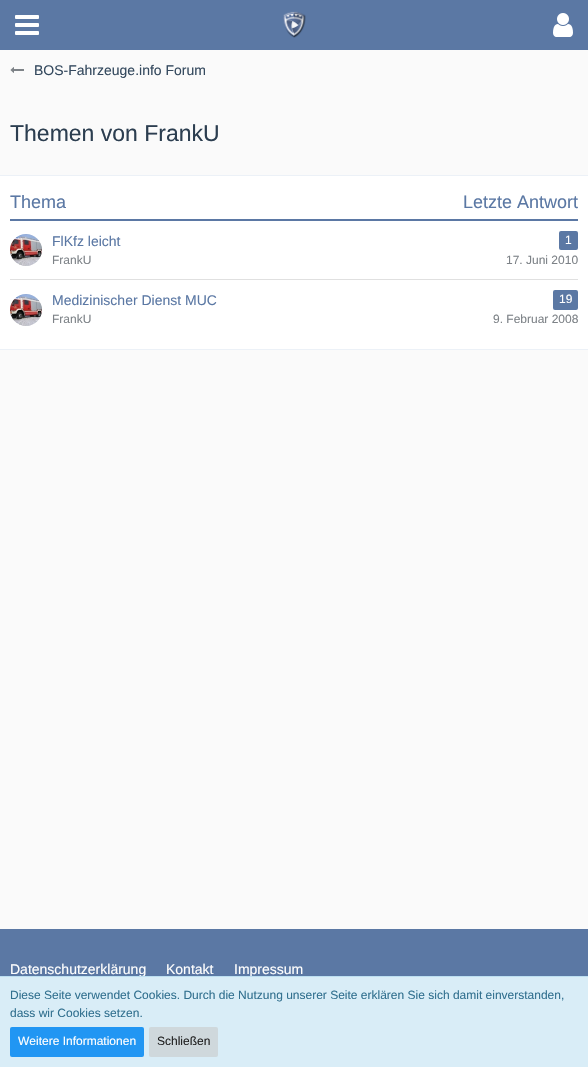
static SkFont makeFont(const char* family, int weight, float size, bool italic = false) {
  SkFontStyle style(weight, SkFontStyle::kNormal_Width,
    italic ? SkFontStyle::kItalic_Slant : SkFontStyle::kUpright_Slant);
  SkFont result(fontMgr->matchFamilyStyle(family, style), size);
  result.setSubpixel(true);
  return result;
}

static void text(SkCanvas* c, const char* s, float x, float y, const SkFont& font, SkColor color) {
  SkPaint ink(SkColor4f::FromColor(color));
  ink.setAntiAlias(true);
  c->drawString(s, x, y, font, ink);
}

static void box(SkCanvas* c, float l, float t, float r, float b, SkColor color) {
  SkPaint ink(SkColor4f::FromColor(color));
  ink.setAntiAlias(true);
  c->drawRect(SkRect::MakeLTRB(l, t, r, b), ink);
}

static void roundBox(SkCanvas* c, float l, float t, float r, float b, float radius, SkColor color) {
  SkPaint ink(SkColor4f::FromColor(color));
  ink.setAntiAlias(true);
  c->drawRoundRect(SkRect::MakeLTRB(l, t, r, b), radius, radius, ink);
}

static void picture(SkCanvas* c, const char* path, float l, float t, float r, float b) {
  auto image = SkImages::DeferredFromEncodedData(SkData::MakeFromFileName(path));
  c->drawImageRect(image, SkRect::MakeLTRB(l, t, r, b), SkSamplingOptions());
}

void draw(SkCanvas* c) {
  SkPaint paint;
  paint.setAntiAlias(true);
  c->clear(0xfffafafa);
  box(c, 0, 0, 588, 50, 0xff5b78a4);
  picture(c, "img_01.png", 283, 11, 306, 38);
  picture(c, "img_02.png", 15, 15, 39, 35);
  picture(c, "img_03.png", 553, 13, 573, 37);
  picture(c, "img_04.png", 10, 67, 24, 73);
  SkFont face1 = makeFont("Liberation Sans", 400, 14);
  text(c, "BOS-Fahrzeuge.info Forum", 34, 75, face1, 0xff34495e);
  SkFont face2 = makeFont("Liberation Sans", 400, 23);
  text(c, "Themen von FrankU", 10, 141, face2, 0xff2c3e50);
  box(c, 0, 176, 588, 349, 0xffffffff);
  box(c, 0, 175, 588, 176, 0xffecf1f7);
  box(c, 0, 349, 588, 350, 0xffecf1f7);
  box(c, 10, 219, 578, 221, 0xff5b78a4);
  SkFont face3 = makeFont("Liberation Sans", 400, 18);
  text(c, "Thema", 10, 208, face3, 0xff5b78a4);
  text(c, "Letzte Antwort", 463, 208, face3, 0xff5b78a4);
  picture(c, "img_05.png", 10, 234, 42, 266);
  text(c, "FlKfz leicht", 52, 246, face1, 0xff5b78a4);
  roundBox(c, 559, 231, 578, 250, 2, 0xff5b78a4);
  SkFont face4 = makeFont("Liberation Sans", 400, 12);
  text(c, "1", 565, 244, face4, 0xffffffff);
  text(c, "FrankU", 52, 264, face4, 0xff7d8287);
  text(c, "17. Juni 2010", 506, 264, face4, 0xff7d8287);
  box(c, 10, 279, 578, 280, 0xffe0e0e0);
  picture(c, "img_06.png", 10, 294, 42, 326);
  text(c, "Medizinischer Dienst MUC", 52, 305, face1, 0xff5b78a4);
  roundBox(c, 553, 290, 578, 310, 2, 0xff5b78a4);
  text(c, "19", 559, 303, face4, 0xffffffff);
  text(c, "FrankU", 52, 323, face4, 0xff7d8287);
  text(c, "9. Februar 2008", 493, 323, face4, 0xff7d8287);
  box(c, 0, 929, 588, 976, 0xff5b78a4);
  text(c, "Datenschutzerklärung", 10, 974, face1, 0xffffffff);
  text(c, "Kontakt", 166, 974, face1, 0xffffffff);
  text(c, "Impressum", 234, 974, face1, 0xffffffff);
  box(c, 0, 977, 588, 1067, 0xffd9edf7);
  box(c, 0, 976, 588, 977, 0xffbcdff1);
  text(c, "Diese Seite verwendet Cookies. Durch die Nutzung unserer Seite erklären Sie sich damit einverstanden,", 10, 999, face4, 0xff31708f);
  text(c, "dass wir Cookies setzen.", 10, 1017, face4, 0xff31708f);
  roundBox(c, 10, 1027, 144, 1057, 2, 0xff2196f3);
  text(c, "Weitere Informationen", 18, 1045, face4, 0xffffffff);
  roundBox(c, 149, 1027, 218, 1057, 2, 0xffcfd8dc);
  text(c, "Schließen", 157, 1045, face4, 0xff212121);
}
